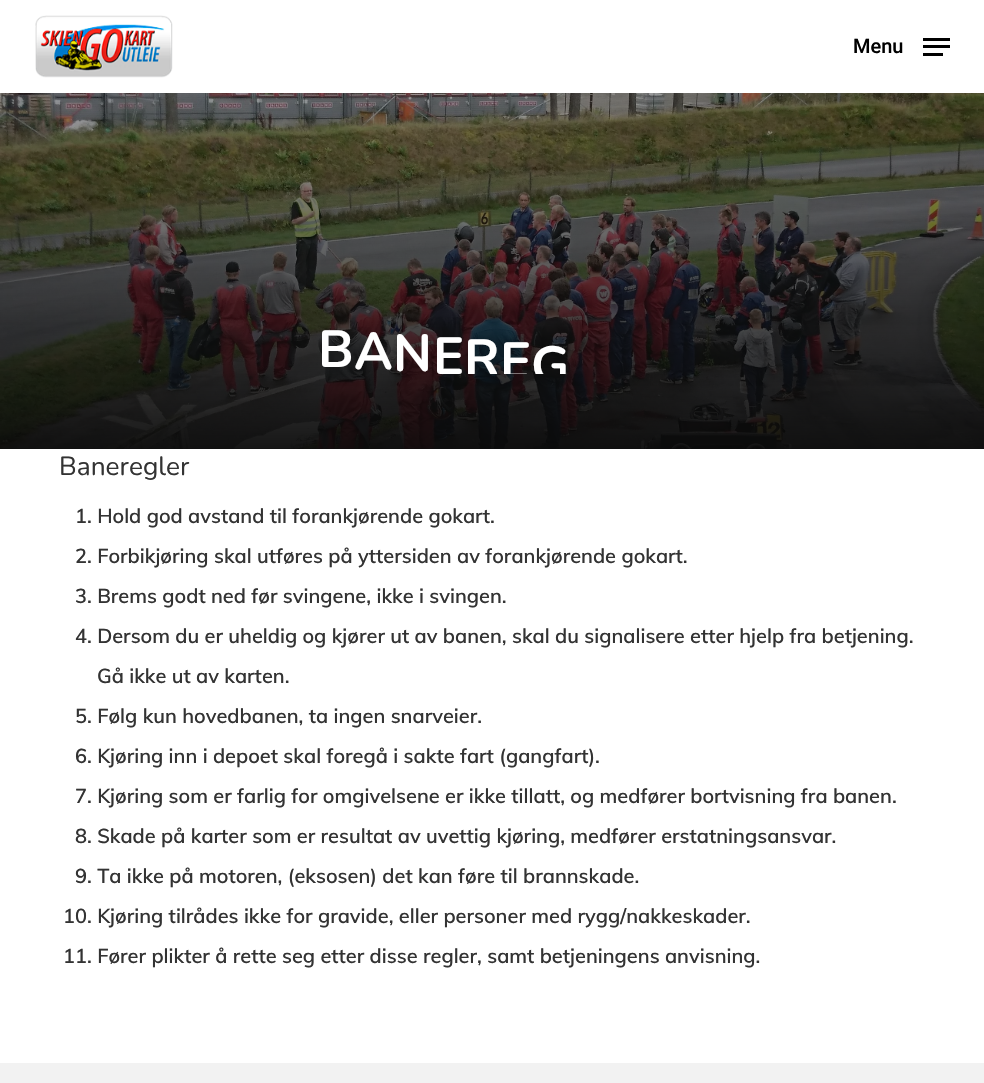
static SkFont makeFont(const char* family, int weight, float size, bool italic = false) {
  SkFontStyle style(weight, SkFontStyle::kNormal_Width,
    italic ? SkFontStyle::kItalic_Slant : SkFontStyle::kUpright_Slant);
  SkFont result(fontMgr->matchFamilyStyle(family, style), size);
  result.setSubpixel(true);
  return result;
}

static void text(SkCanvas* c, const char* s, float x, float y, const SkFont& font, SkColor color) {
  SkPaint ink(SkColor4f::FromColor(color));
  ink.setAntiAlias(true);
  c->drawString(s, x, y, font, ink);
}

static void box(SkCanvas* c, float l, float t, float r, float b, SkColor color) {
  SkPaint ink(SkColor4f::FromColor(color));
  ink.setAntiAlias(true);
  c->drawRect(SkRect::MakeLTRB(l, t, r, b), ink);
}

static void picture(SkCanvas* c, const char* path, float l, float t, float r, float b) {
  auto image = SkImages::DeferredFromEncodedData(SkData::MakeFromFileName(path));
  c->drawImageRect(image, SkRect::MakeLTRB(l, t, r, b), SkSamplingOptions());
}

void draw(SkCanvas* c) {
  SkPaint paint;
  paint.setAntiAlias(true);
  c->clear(0xffffffff);
  picture(c, "img_01.png", 35, 15, 173, 78);
  SkFont face1 = makeFont("Roboto", 500, 20);
  text(c, "Menu", 853, 53, face1, 0xff000000);
  box(c, 923, 38, 950, 41, 0xff000000);
  box(c, 923, 53, 943, 56, 0xff000000);
  box(c, 923, 45, 950, 48, 0xff000000);
  box(c, 0, 448, 984, 449, 0xff566678);
  picture(c, "img_02.png", 0, 93, 984, 449);
  {
    const SkColor colors[] = {0x610a0a0a, 0xf20a0a0a};
    const float stops[] = {0, 1};
    const SkPoint ends[] = {{493, 92}, {493, 449}};
    paint.setShader(SkGradientShader::MakeLinear(ends, colors, stops, 2, SkTileMode::kClamp));
    paint.setAlpha(255);
  }
  c->drawRect(SkRect::MakeLTRB(0, 93, 984, 449), paint);
  SkFont face2 = makeFont("Nunito", 700, 52);
  text(c, "B", 318, 367, face2, 0xffffffff);
  text(c, "A", 354, 369, face2, 0xffffffff);
  text(c, "N", 393, 371, face2, 0xffffffff);
  text(c, "E", 433, 374, face2, 0xffffffff);
  c->save();
  c->clipRect(SkRect::MakeLTRB(315, 311, 670, 374));
  text(c, "R", 464, 376, face2, 0xffffffff);
  text(c, "E", 500, 379, face2, 0xffffffff);
  text(c, "G", 531, 383, face2, 0xffffffff);
  c->restore();
  SkFont face3 = makeFont("Nunito", 400, 26.25f);
  text(c, "Baneregler", 59, 475, face3, 0xff333333);
  SkFont face4 = makeFont("Muli", 600, 20);
  text(c, "1. Hold god avstand til forankjørende gokart.", 75, 523, face4, 0xff333333);
  text(c, "2. Forbikjøring skal utføres på yttersiden av forankjørende gokart.", 75, 563, face4, 0xff333333);
  text(c, "3. Brems godt ned før svingene, ikke i svingen.", 75, 603, face4, 0xff333333);
  text(c, "4. Dersom du er uheldig og kjører ut av banen, skal du signalisere etter hjelp fra betjening.", 75, 643, face4, 0xff333333);
  text(c, "Gå ikke ut av karten.", 97, 683, face4, 0xff333333);
  text(c, "5. Følg kun hovedbanen, ta ingen snarveier.", 75, 723, face4, 0xff333333);
  text(c, "6. Kjøring inn i depoet skal foregå i sakte fart (gangfart).", 75, 763, face4, 0xff333333);
  text(c, "7. Kjøring som er farlig for omgivelsene er ikke tillatt, og medfører bortvisning fra banen.", 75, 803, face4, 0xff333333);
  text(c, "8. Skade på karter som er resultat av uvettig kjøring, medfører erstatningsansvar.", 75, 843, face4, 0xff333333);
  text(c, "9. Ta ikke på motoren, (eksosen) det kan føre til brannskade.", 75, 883, face4, 0xff333333);
  text(c, "10. Kjøring tilrådes ikke for gravide, eller personer med rygg/nakkeskader.", 63, 923, face4, 0xff333333);
  text(c, "11. Fører plikter å rette seg etter disse regler, samt betjeningens anvisning.", 63, 963, face4, 0xff333333);
  box(c, 0, 1063, 984, 1083, 0xfff2f2f2);
}
